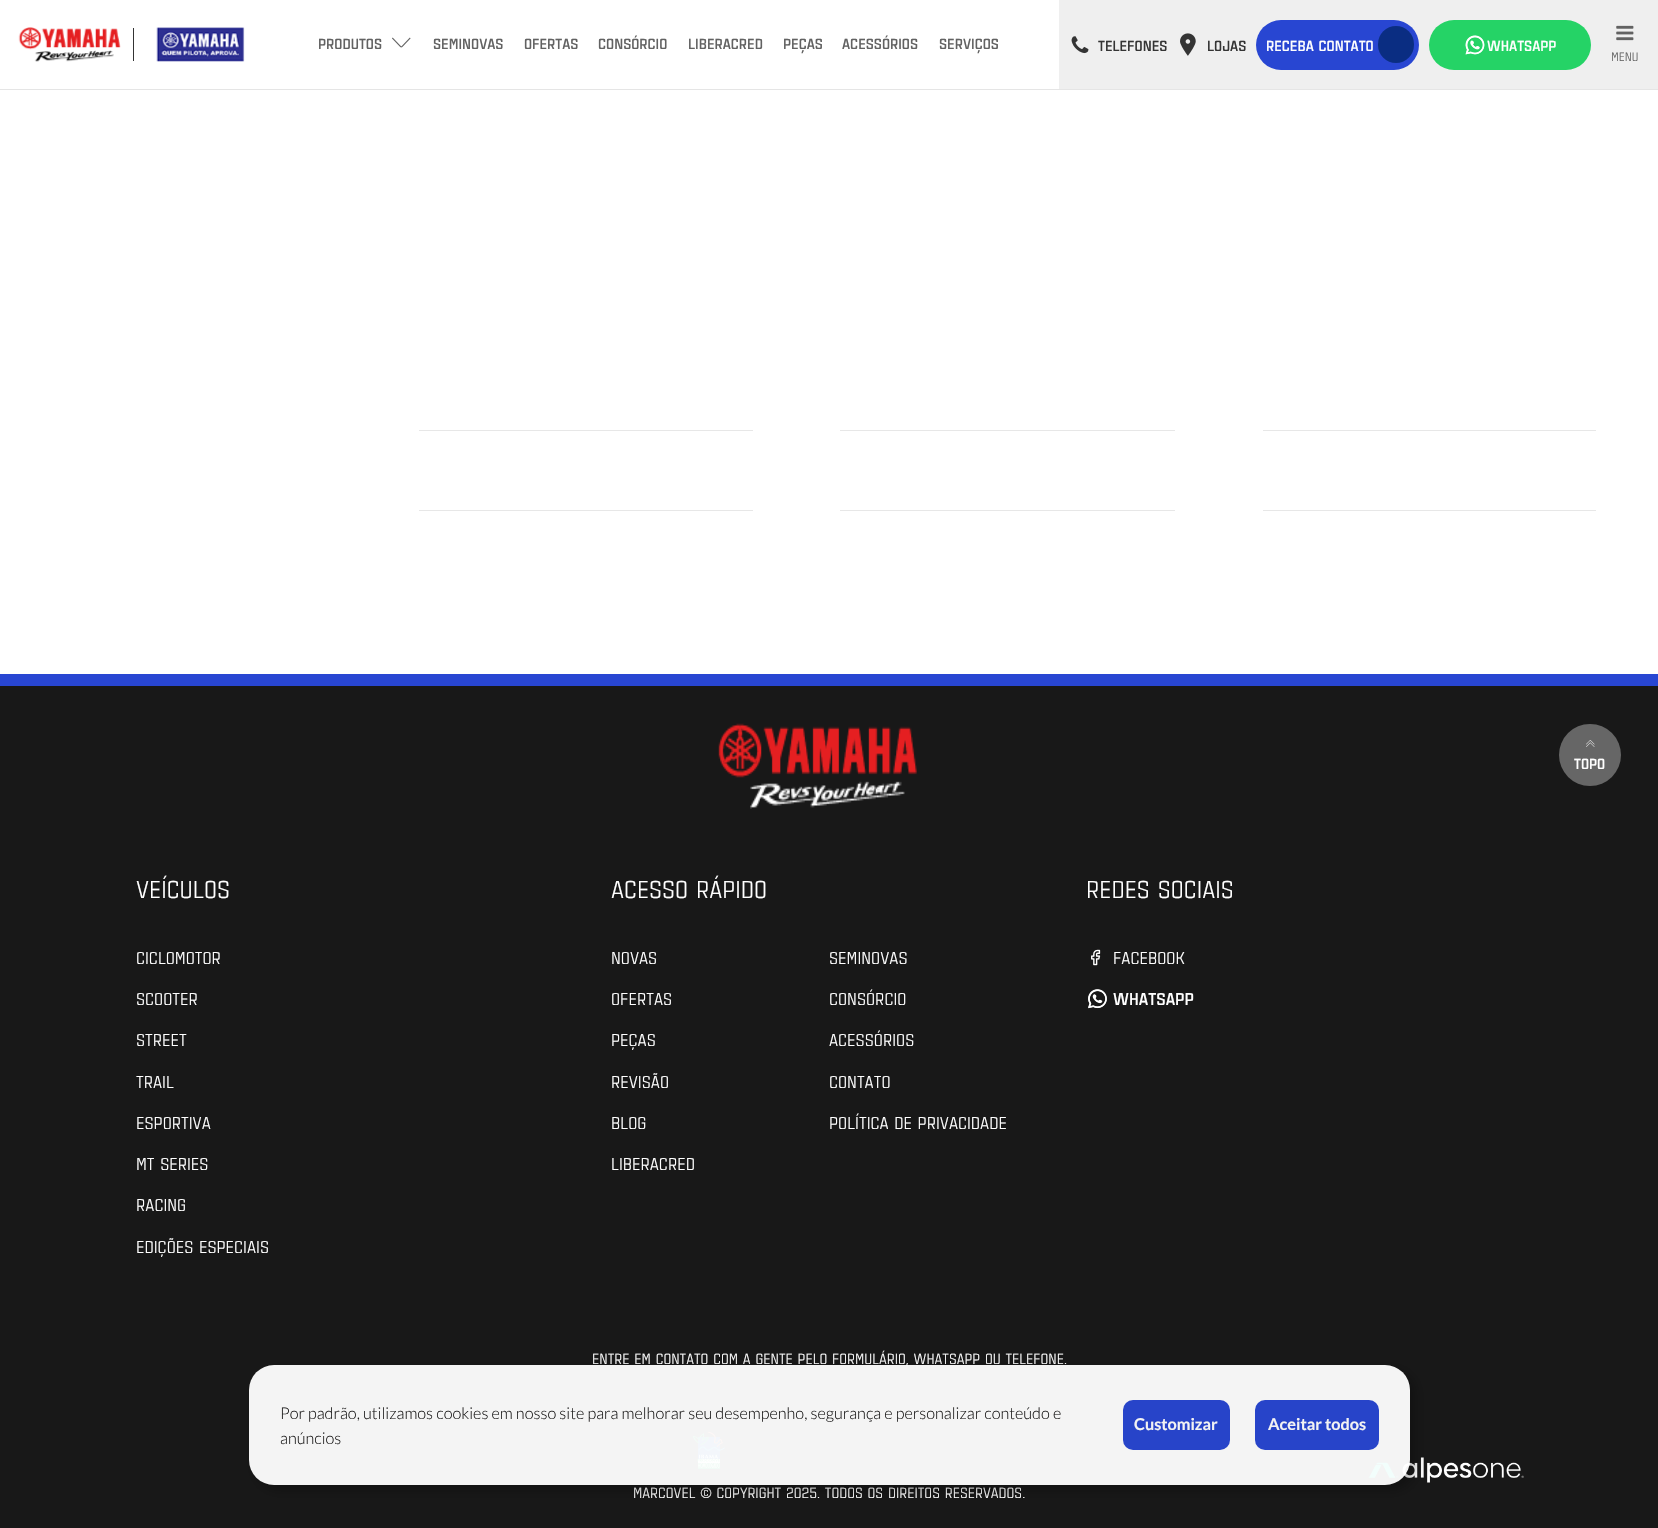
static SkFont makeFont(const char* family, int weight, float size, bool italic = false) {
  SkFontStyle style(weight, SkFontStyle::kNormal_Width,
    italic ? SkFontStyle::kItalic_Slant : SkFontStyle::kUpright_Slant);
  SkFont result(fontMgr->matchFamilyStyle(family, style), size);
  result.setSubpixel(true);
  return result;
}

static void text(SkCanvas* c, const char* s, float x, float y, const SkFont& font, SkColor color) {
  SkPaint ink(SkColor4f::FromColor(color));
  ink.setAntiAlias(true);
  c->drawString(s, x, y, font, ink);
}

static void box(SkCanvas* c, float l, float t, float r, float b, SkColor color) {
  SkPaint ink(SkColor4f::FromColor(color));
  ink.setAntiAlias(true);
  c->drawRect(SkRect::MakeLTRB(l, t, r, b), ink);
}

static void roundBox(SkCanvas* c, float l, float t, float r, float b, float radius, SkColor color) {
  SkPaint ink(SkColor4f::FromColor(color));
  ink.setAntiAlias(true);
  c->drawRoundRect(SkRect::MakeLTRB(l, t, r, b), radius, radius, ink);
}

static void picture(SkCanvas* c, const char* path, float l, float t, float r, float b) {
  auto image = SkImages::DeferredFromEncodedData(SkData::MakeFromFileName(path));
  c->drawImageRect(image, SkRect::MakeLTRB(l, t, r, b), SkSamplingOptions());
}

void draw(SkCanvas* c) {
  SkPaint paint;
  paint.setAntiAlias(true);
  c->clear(0xffffffff);
  box(c, 0, 89, 1658, 90, 0xffe5e5e5);
  box(c, 133, 28, 134, 61, 0xff343434);
  picture(c, "img_01.png", 18, 27, 121, 62);
  picture(c, "img_02.png", 156, 27, 245, 62);
  SkFont face1 = makeFont("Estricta", 700, 15);
  text(c, "PRODUTOS", 318, 49, face1, 0xff626262);
  picture(c, "img_03.png", 392, 37, 411, 48);
  text(c, "SEMINOVAS", 433, 49, face1, 0xff626262);
  text(c, "OFERTAS", 524, 49, face1, 0xff626262);
  text(c, "CONSÓRCIO", 598, 49, face1, 0xff626262);
  text(c, "LIBERACRED", 688, 49, face1, 0xff626262);
  text(c, "PEÇAS", 783, 49, face1, 0xff626262);
  text(c, "ACESSÓRIOS", 842, 49, face1, 0xff626262);
  text(c, "SERVIÇOS", 939, 49, face1, 0xff626262);
  box(c, 1059, 0, 1658, 89, 0xffefefef);
  picture(c, "img_04.png", 1071, 36, 1089, 54);
  text(c, "TELEFONES", 1098, 51, face1, 0xff343434);
  picture(c, "img_05.png", 1180, 33, 1196, 56);
  text(c, "LOJAS", 1207, 51, face1, 0xff343434);
  roundBox(c, 1256, 20, 1419, 70, 25, 0xff2846d2);
  text(c, "RECEBA CONTATO", 1266, 51, face1, 0xffffffff);
  roundBox(c, 1378, 26, 1414, 63, 18, 0xff0a2d82);
  roundBox(c, 1429, 20, 1591, 70, 25, 0xff25d366);
  picture(c, "img_06.png", 1465, 35, 1485, 55);
  picture(c, "img_07.png", 1465, 35, 1485, 55);
  text(c, "WHATSAPP", 1487, 51, face1, 0xffffffff);
  picture(c, "img_08.png", 1616, 25, 1634, 41);
  SkFont face2 = makeFont("Estricta", 400, 12.5f);
  text(c, "MENU", 1611, 61, face2, 0xff626262);
  box(c, 419, 430, 753, 431, 0xffe7e7e7);
  box(c, 419, 510, 753, 511, 0xffe7e7e7);
  box(c, 840, 430, 1175, 431, 0xffe7e7e7);
  box(c, 840, 510, 1175, 511, 0xffe7e7e7);
  box(c, 1263, 430, 1596, 431, 0xffe7e7e7);
  box(c, 1263, 510, 1596, 511, 0xffe7e7e7);
  box(c, 0, 686, 1658, 1528, 0xff181818);
  box(c, 0, 674, 1658, 686, 0xff2846d2);
  paint.setColor(0xff666666);
  c->drawCircle(1590, 755, 31, paint);
  picture(c, "img_09.png", 1586, 740, 1595, 747);
  text(c, "TOPO", 1574, 769, face1, 0xffffffff);
  picture(c, "img_10.png", 718, 723, 917, 809);
  SkFont face3 = makeFont("Estricta", 400, 25);
  text(c, "VEÍCULOS", 136, 898, face3, 0xffffffff);
  SkFont face4 = makeFont("Estricta", 400, 17.5f);
  text(c, "CICLOMOTOR", 136, 964, face4, 0xffffffff);
  text(c, "SCOOTER", 136, 1005, face4, 0xffffffff);
  text(c, "STREET", 136, 1046, face4, 0xffffffff);
  text(c, "TRAIL", 136, 1088, face4, 0xffffffff);
  text(c, "ESPORTIVA", 136, 1129, face4, 0xffffffff);
  text(c, "MT SERIES", 136, 1170, face4, 0xffffffff);
  text(c, "RACING", 136, 1211, face4, 0xffffffff);
  text(c, "EDIÇÕES ESPECIAIS", 136, 1253, face4, 0xffffffff);
  text(c, "ACESSO RÁPIDO", 611, 898, face3, 0xffffffff);
  text(c, "NOVAS", 611, 964, face4, 0xffffffff);
  text(c, "SEMINOVAS", 829, 964, face4, 0xffffffff);
  text(c, "OFERTAS", 611, 1005, face4, 0xffffffff);
  text(c, "CONSÓRCIO", 829, 1005, face4, 0xffffffff);
  text(c, "PEÇAS", 611, 1046, face4, 0xffffffff);
  text(c, "ACESSÓRIOS", 829, 1046, face4, 0xffffffff);
  text(c, "REVISÃO", 611, 1088, face4, 0xffffffff);
  text(c, "CONTATO", 829, 1088, face4, 0xffffffff);
  text(c, "BLOG", 611, 1129, face4, 0xffffffff);
  text(c, "POLÍTICA DE PRIVACIDADE", 829, 1129, face4, 0xffffffff);
  text(c, "LIBERACRED", 611, 1170, face4, 0xffffffff);
  text(c, "REDES SOCIAIS", 1086, 898, face3, 0xffffffff);
  picture(c, "img_11.png", 1091, 949, 1101, 966);
  text(c, "FACEBOOK", 1113, 964, face4, 0xffffffff);
  picture(c, "img_12.png", 1088, 989, 1107, 1008);
  picture(c, "img_13.png", 1088, 989, 1107, 1009);
  SkFont face5 = makeFont("Estricta", 700, 17.5f);
  text(c, "WHATSAPP", 1113, 1005, face5, 0xffffffff);
  SkFont face6 = makeFont("Estricta", 400, 15);
  text(c, "ENTRE EM CONTATO COM A GENTE PELO FORMULÁRIO, WHATSAPP OU TELEFONE.", 592, 1364, face6, 0xffffffff);
  picture(c, "img_14.png", 1368, 1457, 1524, 1483);
  picture(c, "img_15.png", 693, 1431, 725, 1469);
  text(c, "MARCOVEL © COPYRIGHT 2025. TODOS OS DIREITOS RESERVADOS.", 633, 1498, face6, 0xffffffff);
  c->save();
  c->clipPath(SkPathBuilder(SkPathFillType::kEvenOdd).moveTo(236, 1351).lineTo(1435, 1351).lineTo(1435, 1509).lineTo(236, 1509).close().moveTo(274, 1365).lineTo(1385, 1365).cubicTo(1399, 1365, 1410, 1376, 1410, 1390).lineTo(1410, 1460).cubicTo(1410, 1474, 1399, 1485, 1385, 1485).lineTo(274, 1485).cubicTo(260, 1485, 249, 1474, 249, 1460).lineTo(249, 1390).cubicTo(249, 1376, 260, 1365, 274, 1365).close().detach(), true);
  paint.setColor(0x45000000);
  paint.setMaskFilter(SkMaskFilter::MakeBlur(kNormal_SkBlurStyle, 6));
  c->drawRoundRect(SkRect::MakeLTRB(255, 1370, 1416, 1490), 25, 25, paint);
  paint.setMaskFilter(nullptr);
  c->restore();
  roundBox(c, 249, 1365, 1410, 1485, 25, 0xf2ffffff);
  SkFont face7 = makeFont("Lato", 300, 16.25f);
  text(c, "Por padrão, utilizamos cookies em nosso site para melhorar seu desempenho, segurança e personalizar conteúdo e", 280, 1419, face7, 0xff1d1c1c);
  text(c, "anúncios", 280, 1444, face7, 0xff1d1c1c);
  roundBox(c, 1123, 1400, 1230, 1450, 10, 0xff2744c9);
  SkFont face8 = makeFont("Lato", 700, 16.25f);
  text(c, "Customizar", 1134, 1430, face8, 0xfff3f3f3);
  roundBox(c, 1255, 1400, 1379, 1450, 10, 0xff2744c9);
  text(c, "Aceitar todos", 1268, 1430, face8, 0xfff3f3f3);
}
